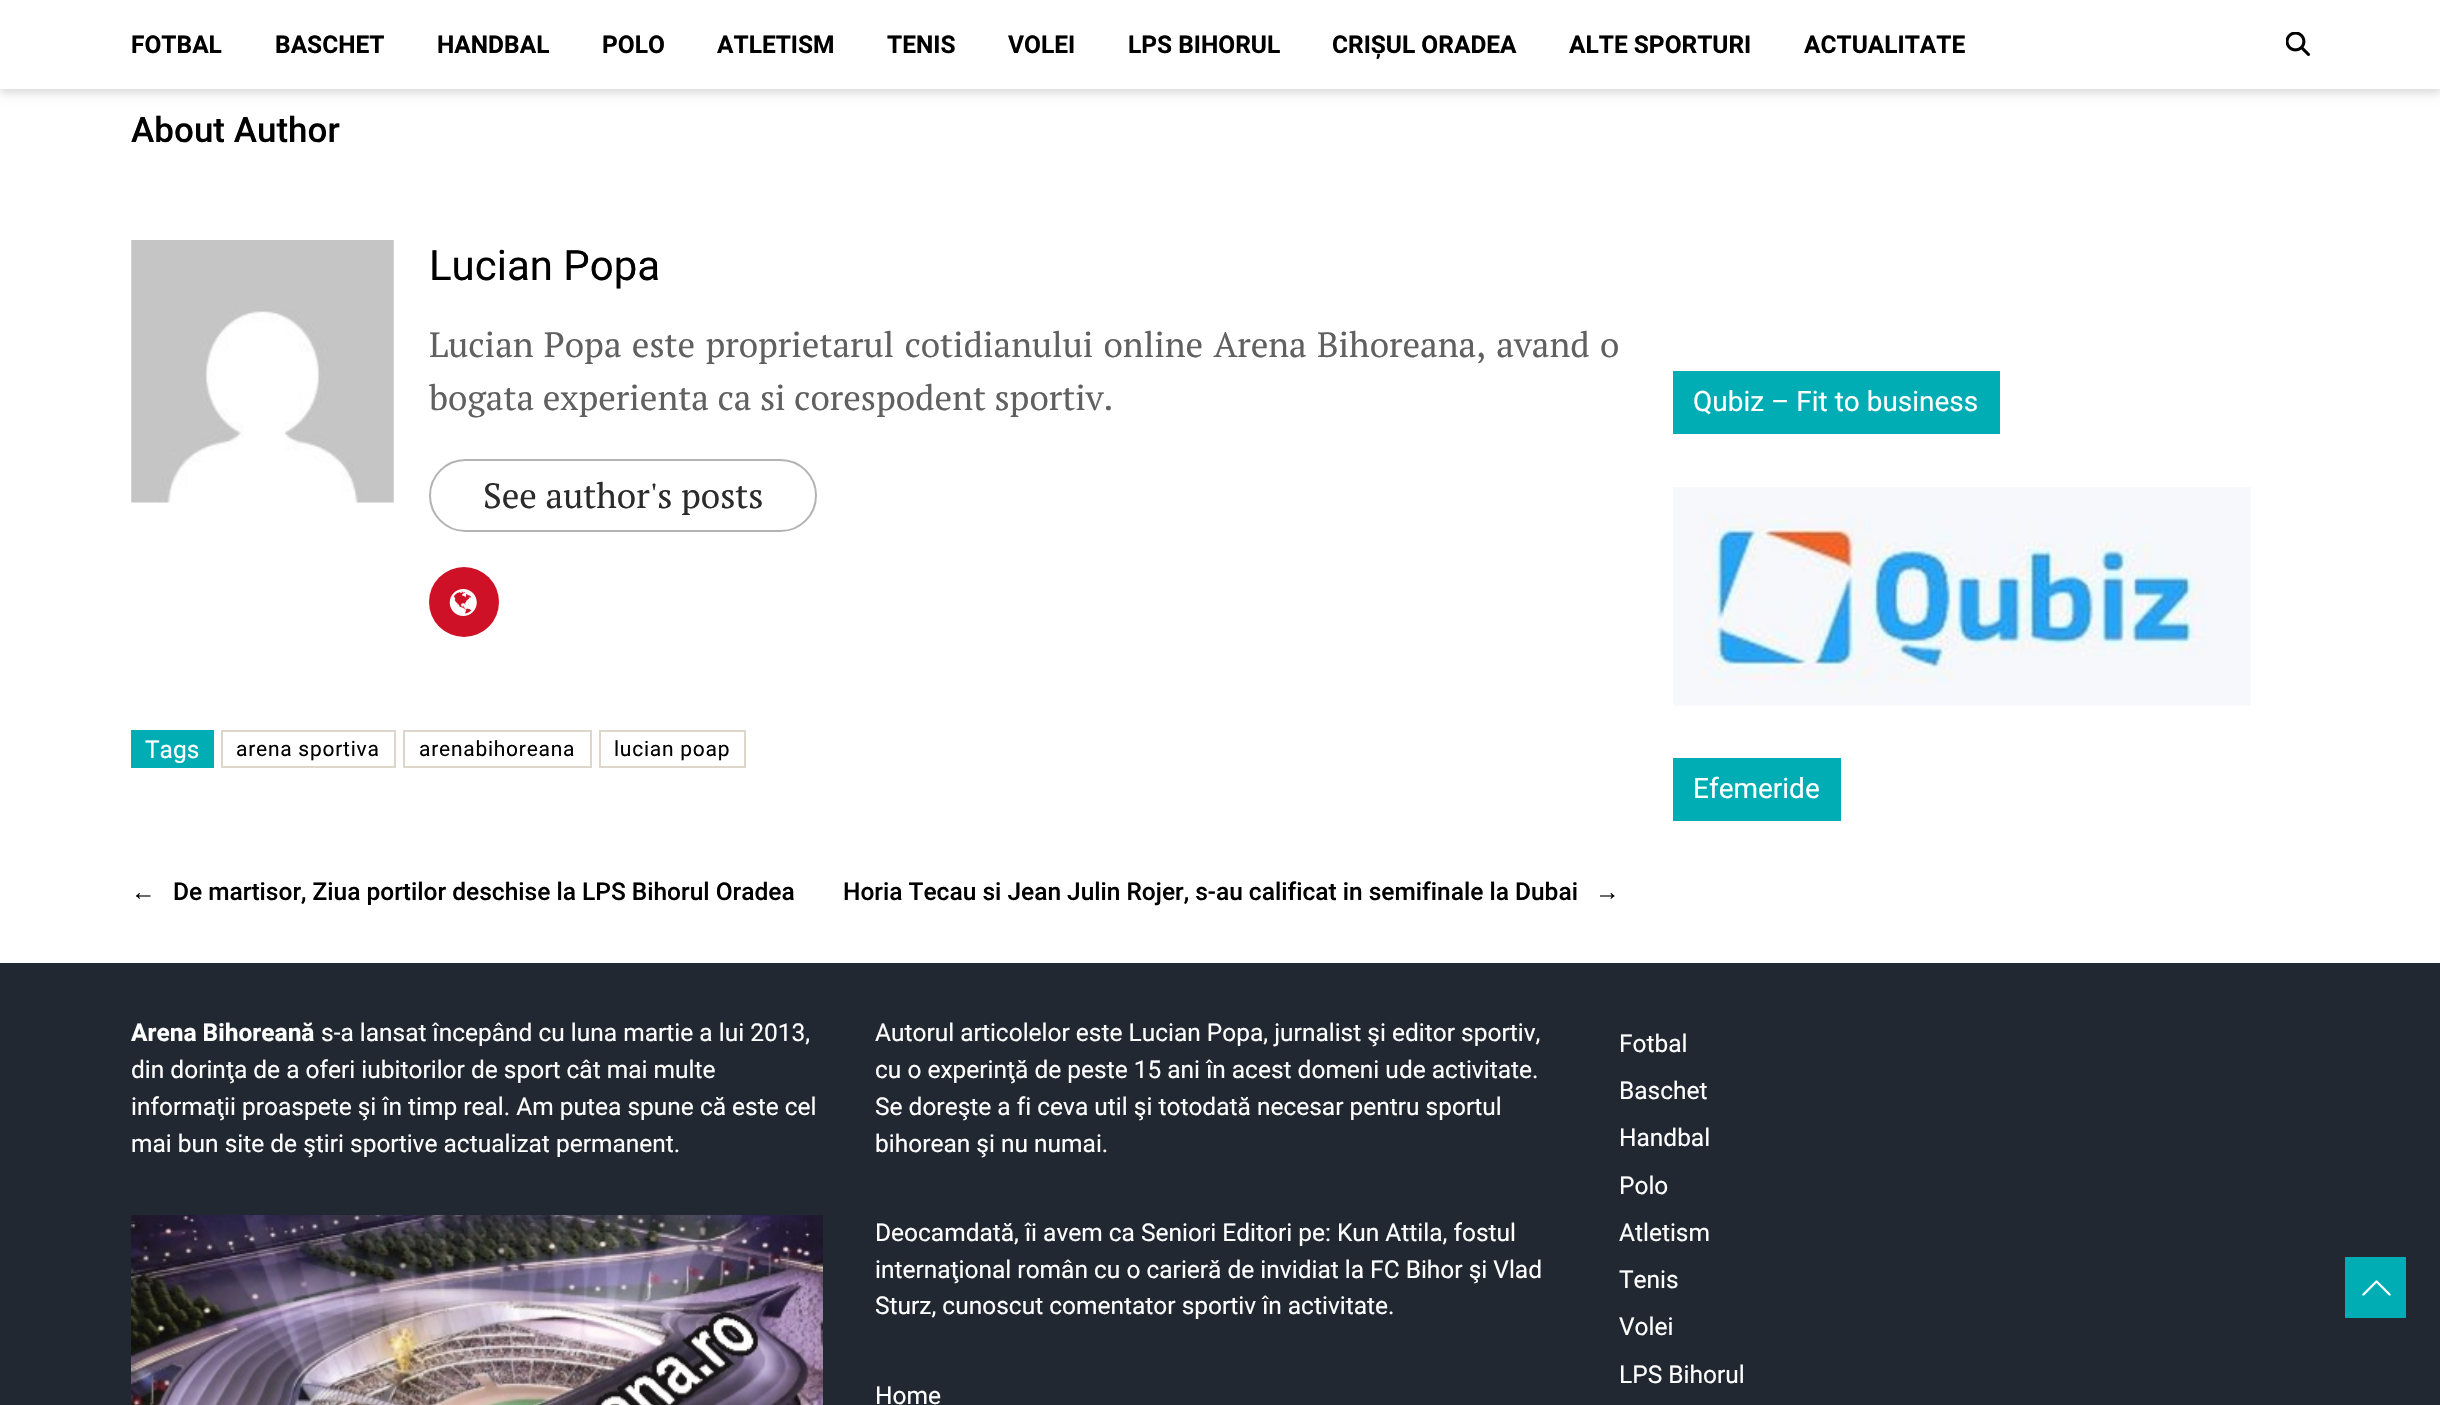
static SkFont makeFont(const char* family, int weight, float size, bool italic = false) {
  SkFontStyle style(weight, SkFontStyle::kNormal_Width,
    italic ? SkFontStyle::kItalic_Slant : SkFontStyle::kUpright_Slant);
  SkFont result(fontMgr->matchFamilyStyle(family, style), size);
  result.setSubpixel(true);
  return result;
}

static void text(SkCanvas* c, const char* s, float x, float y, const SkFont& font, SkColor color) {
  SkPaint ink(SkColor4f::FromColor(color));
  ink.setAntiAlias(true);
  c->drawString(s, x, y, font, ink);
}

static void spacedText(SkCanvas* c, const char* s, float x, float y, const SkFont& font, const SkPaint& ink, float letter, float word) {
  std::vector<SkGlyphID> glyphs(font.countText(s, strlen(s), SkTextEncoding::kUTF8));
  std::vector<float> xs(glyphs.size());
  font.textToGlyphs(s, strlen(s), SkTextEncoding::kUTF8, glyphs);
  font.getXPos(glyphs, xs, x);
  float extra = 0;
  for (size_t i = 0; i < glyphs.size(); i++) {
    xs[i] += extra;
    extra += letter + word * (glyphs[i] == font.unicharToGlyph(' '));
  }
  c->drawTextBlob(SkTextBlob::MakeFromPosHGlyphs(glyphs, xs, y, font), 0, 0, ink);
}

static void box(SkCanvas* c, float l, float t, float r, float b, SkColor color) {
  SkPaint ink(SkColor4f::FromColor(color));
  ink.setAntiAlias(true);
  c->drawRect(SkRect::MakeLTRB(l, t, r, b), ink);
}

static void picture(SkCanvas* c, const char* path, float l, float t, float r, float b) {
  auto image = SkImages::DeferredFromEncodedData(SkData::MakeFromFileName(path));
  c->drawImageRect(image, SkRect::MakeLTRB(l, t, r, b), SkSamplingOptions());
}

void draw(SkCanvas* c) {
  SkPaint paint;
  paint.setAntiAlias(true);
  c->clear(0xffffffff);
  paint.setColor(0x26000000);
  paint.setMaskFilter(SkMaskFilter::MakeBlur(kNormal_SkBlurStyle, 4.5f));
  c->drawRect(SkRect::MakeLTRB(0, 4, 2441, 93), paint);
  paint.setMaskFilter(nullptr);
  box(c, 0, 0, 2440, 89, 0xffffffff);
  SkFont face1 = makeFont("Roboto", 700, 24.5f);
  text(c, "FOTBAL", 131, 53, face1, 0xff000000);
  text(c, "BASCHET", 275, 53, face1, 0xff000000);
  text(c, "HANDBAL", 437, 53, face1, 0xff000000);
  text(c, "POLO", 602, 53, face1, 0xff000000);
  text(c, "ATLETISM", 717, 53, face1, 0xff000000);
  text(c, "TENIS", 887, 53, face1, 0xff000000);
  text(c, "VOLEI", 1008, 53, face1, 0xff000000);
  text(c, "LPS BIHORUL", 1128, 53, face1, 0xff000000);
  text(c, "CRIȘUL ORADEA", 1332, 53, face1, 0xff000000);
  text(c, "ALTE SPORTURI", 1569, 53, face1, 0xff000000);
  text(c, "ACTUALITATE", 1804, 53, face1, 0xff000000);
  picture(c, "img_01.png", 2286, 32, 2310, 56);
  SkFont face2 = makeFont("Roboto", 500, 35);
  text(c, "About Author", 131, 142, face2, 0xff000000);
  picture(c, "img_02.png", 131, 240, 394, 503);
  SkFont face3 = makeFont("Roboto", 400, 42);
  text(c, "Lucian Popa", 429, 280, face3, 0xff000000);
  SkFont face4 = makeFont("PT Serif", 400, 35);
  paint.setColor(0xff606060);
  spacedText(c, "Lucian Popa este proprietarul cotidianului online Arena Bihoreana, avand o", 429, 357, face4, paint, 0, 1.75f);
  text(c, "bogata experienta ca si corespodent sportiv.", 429, 410, face4, 0xff606060);
  paint.setStyle(SkPaint::kStroke_Style);
  paint.setStrokeWidth(2);
  paint.setColor(0xffb3b3b3);
  c->drawRoundRect(SkRect::MakeLTRB(430, 460, 816, 531), 35.5f, 35.5f, paint);
  text(c, "See author's posts", 483, 508, face4, 0xff2b2b2b);
  paint.setStyle(SkPaint::kFill_Style);
  paint.setColor(0xffce1126);
  c->drawCircle(464, 602, 35, paint);
  picture(c, "img_03.png", 449, 589, 477, 616);
  box(c, 131, 730, 214, 768, 0xff00adb5);
  SkFont face5 = makeFont("Roboto", 400, 24.5f);
  text(c, "Tags", 145, 758, face5, 0xffffffff);
  paint.setStyle(SkPaint::kStroke_Style);
  paint.setColor(0xffdcd7ca);
  c->drawRect(SkRect::MakeLTRB(222, 731, 395, 767), paint);
  SkFont face6 = makeFont("Roboto", 400, 21);
  paint.setStyle(SkPaint::kFill_Style);
  paint.setColor(0xff000000);
  spacedText(c, "arena sportiva", 236, 756, face6, paint, 0.75f, 0);
  paint.setStyle(SkPaint::kStroke_Style);
  paint.setColor(0xffdcd7ca);
  c->drawRect(SkRect::MakeLTRB(404, 731, 591, 767), paint);
  paint.setStyle(SkPaint::kFill_Style);
  paint.setColor(0xff000000);
  spacedText(c, "arenabihoreana", 419, 756, face6, paint, 0.75f, 0);
  paint.setStyle(SkPaint::kStroke_Style);
  paint.setColor(0xffdcd7ca);
  c->drawRect(SkRect::MakeLTRB(600, 731, 745, 767), paint);
  paint.setStyle(SkPaint::kFill_Style);
  paint.setColor(0xff000000);
  spacedText(c, "lucian poap", 614, 756, face6, paint, 0.75f, 0);
  SkFont face7 = makeFont("Liberation Sans", 400, 24.5f);
  text(c, "←", 131, 900, face7, 0xff000000);
  SkFont face8 = makeFont("Roboto", 500, 24.5f);
  text(c, "De martisor, Ziua portilor deschise la LPS Bihorul Oradea", 173, 900, face8, 0xff000000);
  text(c, "Horia Tecau si Jean Julin Rojer, s-au calificat in semifinale la Dubai", 843, 900, face8, 0xff000000);
  text(c, "→", 1595, 900, face7, 0xff000000);
  box(c, 1673, 371, 2000, 434, 0xff00adb5);
  SkFont face9 = makeFont("Roboto", 400, 28);
  text(c, "Qubiz – Fit to business", 1693, 411, face9, 0xffffffff);
  picture(c, "img_04.png", 1673, 487, 2251, 706);
  box(c, 1673, 758, 1841, 821, 0xff00adb5);
  text(c, "Efemeride", 1693, 798, face9, 0xffffffff);
  box(c, 0, 963, 2440, 1405, 0xff222831);
  text(c, "Arena Bihoreană", 131, 1041, face1, 0xffffffff);
  text(c, "s-a lansat începând cu luna martie a lui 2013,", 321, 1041, face5, 0xffffffff);
  text(c, "din dorinţa de a oferi iubitorilor de sport cât mai multe", 131, 1078, face5, 0xffffffff);
  text(c, "informaţii proaspete şi în timp real. Am putea spune că este cel", 131, 1115, face5, 0xffffffff);
  text(c, "mai bun site de ştiri sportive actualizat permanent.", 131, 1152, face5, 0xffffffff);
  picture(c, "img_05.png", 131, 1215, 823, 1405);
  text(c, "Autorul articolelor este Lucian Popa, jurnalist şi editor sportiv,", 875, 1041, face5, 0xffffffff);
  text(c, "cu o experinţă de peste 15 ani în acest domeni ude activitate.", 875, 1078, face5, 0xffffffff);
  text(c, "Se doreşte a fi ceva util şi totodată necesar pentru sportul", 875, 1115, face5, 0xffffffff);
  text(c, "bihorean şi nu numai.", 875, 1152, face5, 0xffffffff);
  text(c, "Deocamdată, îi avem ca Seniori Editori pe: Kun Attila, fostul", 875, 1241, face5, 0xffffffff);
  text(c, "internaţional român cu o carieră de invidiat la FC Bihor şi Vlad", 875, 1278, face5, 0xffffffff);
  text(c, "Sturz, cunoscut comentator sportiv în activitate.", 875, 1314, face5, 0xffffffff);
  text(c, "Home", 875, 1404, face5, 0xffffffff);
  text(c, "Fotbal", 1619, 1052, face5, 0xffffffff);
  text(c, "Baschet", 1619, 1099, face5, 0xffffffff);
  text(c, "Handbal", 1619, 1146, face5, 0xffffffff);
  text(c, "Polo", 1619, 1194, face5, 0xffffffff);
  text(c, "Atletism", 1619, 1241, face5, 0xffffffff);
  text(c, "Tenis", 1619, 1288, face5, 0xffffffff);
  text(c, "Volei", 1619, 1335, face5, 0xffffffff);
  text(c, "LPS Bihorul", 1619, 1383, face5, 0xffffffff);
  box(c, 2345, 1257, 2406, 1318, 0xff00adb5);
  picture(c, "img_06.png", 2362, 1280, 2391, 1296);
}
